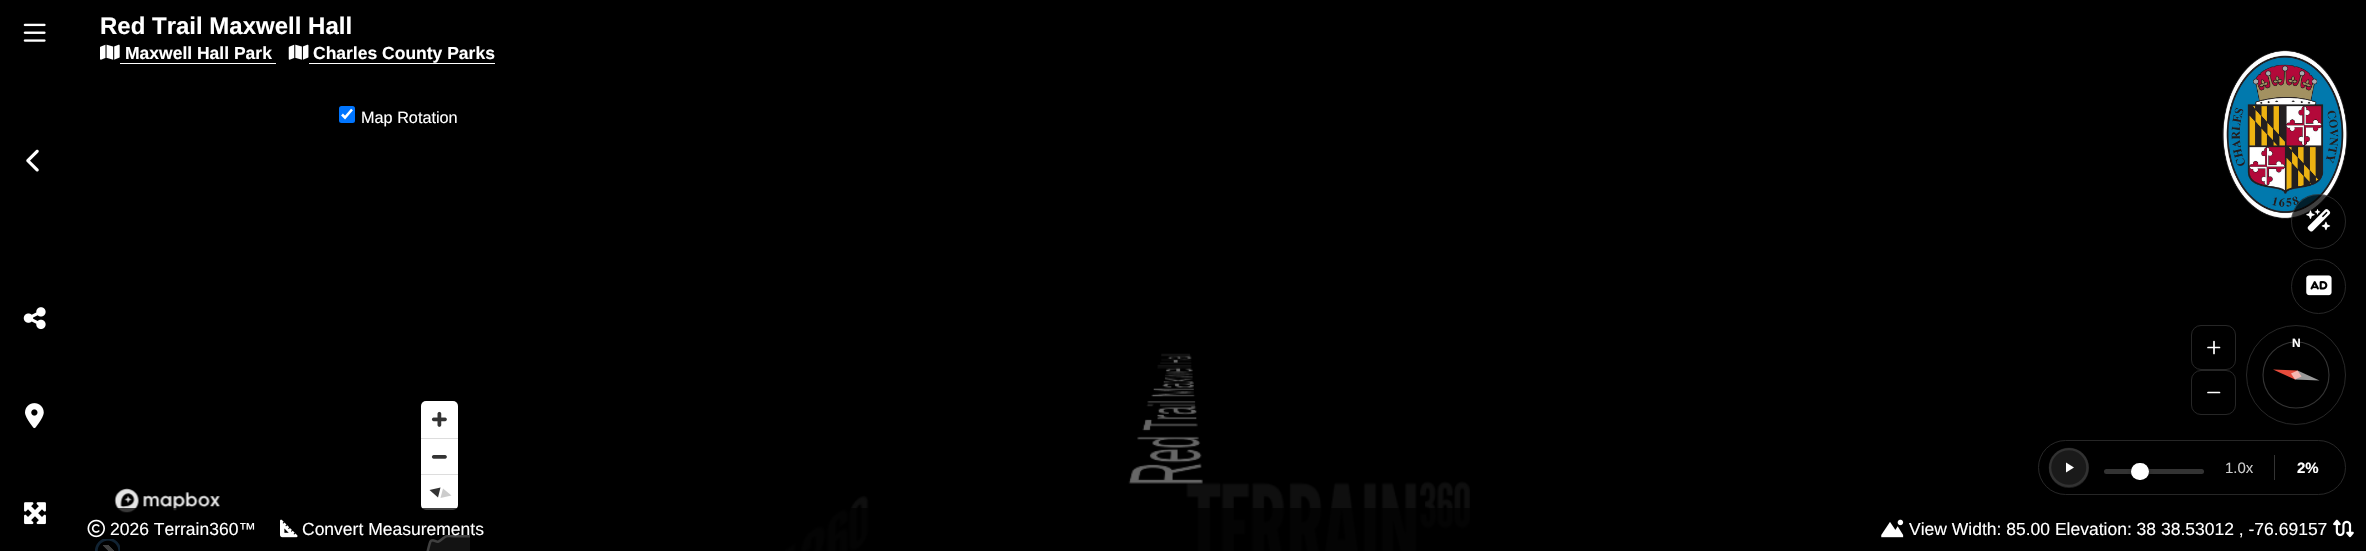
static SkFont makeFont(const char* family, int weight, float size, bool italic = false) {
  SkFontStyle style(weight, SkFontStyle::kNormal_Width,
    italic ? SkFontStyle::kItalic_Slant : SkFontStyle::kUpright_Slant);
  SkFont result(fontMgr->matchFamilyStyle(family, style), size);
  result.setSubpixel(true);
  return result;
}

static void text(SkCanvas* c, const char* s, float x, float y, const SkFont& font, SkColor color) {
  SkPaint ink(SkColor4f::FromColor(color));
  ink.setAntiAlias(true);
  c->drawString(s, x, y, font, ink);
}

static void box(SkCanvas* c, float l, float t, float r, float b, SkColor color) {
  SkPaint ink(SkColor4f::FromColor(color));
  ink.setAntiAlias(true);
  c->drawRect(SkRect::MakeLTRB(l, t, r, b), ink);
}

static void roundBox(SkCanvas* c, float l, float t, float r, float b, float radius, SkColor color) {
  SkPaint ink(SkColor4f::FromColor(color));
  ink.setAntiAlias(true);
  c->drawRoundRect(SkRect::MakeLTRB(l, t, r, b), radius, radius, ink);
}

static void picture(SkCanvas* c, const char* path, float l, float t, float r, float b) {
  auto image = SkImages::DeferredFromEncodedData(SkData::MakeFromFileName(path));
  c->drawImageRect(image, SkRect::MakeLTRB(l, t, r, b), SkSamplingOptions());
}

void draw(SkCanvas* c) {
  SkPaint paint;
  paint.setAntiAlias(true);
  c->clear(0xff000000);
  picture(c, "img_01.png", 23, 23, 46, 42);
  picture(c, "img_02.png", 26, 149, 39, 172);
  picture(c, "img_03.png", 23, 307, 46, 330);
  picture(c, "img_04.png", 25, 403, 44, 429);
  picture(c, "img_05.png", 24, 502, 46, 525);
  SkFont face1 = makeFont("Liberation Sans", 700, 24);
  text(c, "Red Trail Maxwell Hall", 100, 34, face1, 0xffffffff);
  picture(c, "img_06.png", 100, 44, 120, 60);
  SkFont face2 = makeFont("Liberation Sans", 700, 17.5f);
  text(c, "Maxwell Hall Park", 125, 59, face2, 0xffffffff);
  box(c, 120, 63, 276, 64, 0xffffffff);
  picture(c, "img_07.png", 288, 44, 309, 60);
  text(c, "Charles County Parks", 313, 59, face2, 0xffffffff);
  box(c, 309, 63, 495, 64, 0xffffffff);
  picture(c, "img_08.png", 2222, 50, 2348, 219);
  roundBox(c, 339, 106, 355, 123, 2.5f, 0xff0075ff);
  paint.setStyle(SkPaint::kStroke_Style);
  paint.setStrokeWidth(2.6f);
  paint.setColor(0xffffffff);
  c->drawPath(SkPathBuilder().moveTo(342, 114.5f).lineTo(345, 117.5f).lineTo(352, 109.5f).detach(), paint);
  SkFont face3 = makeFont("Liberation Sans", 400, 16.25f);
  text(c, "Map Rotation", 361, 123, face3, 0xffffffff);
  picture(c, "img_09.png", 114, 488, 220, 513);
  roundBox(c, 421, 401, 458, 510, 5, 0xffffffff);
  picture(c, "img_10.png", 431, 411, 447, 427);
  box(c, 421, 438, 458, 439, 0xffdddddd);
  picture(c, "img_11.png", 431, 455, 447, 459);
  box(c, 421, 474, 458, 475, 0xffdddddd);
  paint.setStyle(SkPaint::kFill_Style);
  paint.setColor(0xff333333);
  c->drawPath(SkPathBuilder().moveTo(438, 497.5f).lineTo(429.5f, 490).lineTo(440.5f, 487.5f).close().detach(), paint);
  paint.setColor(0xffcccccc);
  c->drawPath(SkPathBuilder().moveTo(440.5f, 498).lineTo(451.5f, 495.5f).lineTo(443, 488.5f).close().detach(), paint);
  {
    const SkColor colors[] = {0xff000000, 0xff428bca, 0xff428bca, 0xff000000};
    const float stops[] = {0.55f, 0.6f, 0.7f, 0.75f};
    paint.setShader(SkGradientShader::MakeRadial({108, 551}, 18, colors, stops, 4, SkTileMode::kClamp));
    paint.setAlpha(255);
  }
  c->drawRect(SkRect::MakeLTRB(95, 539, 120, 551), paint);
  {
    const SkColor colors[] = {0xff000000, 0xff000000, 0xffffffff, 0xffffffff};
    const float stops[] = {0, 0.45f, 0.5f, 1};
    const SkPoint ends[] = {{114, 545}, {108, 551}};
    paint.setShader(SkGradientShader::MakeLinear(ends, colors, stops, 4, SkTileMode::kClamp));
    paint.setAlpha(255);
  }
  c->drawRect(SkRect::MakeLTRB(109, 546, 115, 551), paint);
  {
    const SkColor colors[] = {0xff000000, 0xff000000, 0xffffffff, 0xffffffff};
    const float stops[] = {0, 0.49f, 0.55f, 1};
    const SkPoint ends[] = {{102, 551}, {108, 545}};
    paint.setShader(SkGradientShader::MakeLinear(ends, colors, stops, 4, SkTileMode::kClamp));
    paint.setAlpha(255);
  }
  c->drawRect(SkRect::MakeLTRB(103, 545, 109, 551), paint);
  picture(c, "img_12.png", 426, 535, 470, 551);
  paint.setShader(nullptr);
  paint.setColor(0xbf000000);
  c->drawCircle(2318.5f, 221.5f, 27.5f, paint);
  paint.setStyle(SkPaint::kStroke_Style);
  paint.setStrokeWidth(1);
  paint.setColor(0x26ffffff);
  c->drawCircle(2318.5f, 221.5f, 27, paint);
  picture(c, "img_13.png", 2306, 209, 2331, 232);
  paint.setColor(0xff262626);
  c->drawCircle(2318.5f, 286.5f, 27, paint);
  picture(c, "img_14.png", 2306, 275, 2332, 296);
  picture(c, "img_15.png", 785, 353, 1470, 551);
  c->drawRoundRect(SkRect::MakeLTRB(2191.5f, 325.5f, 2235.5f, 369.5f), 9.5f, 9.5f, paint);
  paint.setStrokeWidth(1.7f);
  paint.setStrokeCap(SkPaint::kRound_Cap);
  paint.setColor(0xffffffff);
  c->drawPath(SkPathBuilder().moveTo(2214, 341.5f).lineTo(2214, 353.5f).moveTo(2208, 347.5f).lineTo(2219.5f, 347.5f).detach(), paint);
  paint.setStrokeWidth(1);
  paint.setStrokeCap(SkPaint::kButt_Cap);
  paint.setColor(0xff262626);
  c->drawRoundRect(SkRect::MakeLTRB(2191.5f, 370.5f, 2235.5f, 414.5f), 9.5f, 9.5f, paint);
  paint.setStrokeWidth(1.7f);
  paint.setStrokeCap(SkPaint::kRound_Cap);
  paint.setColor(0xffffffff);
  c->drawPath(SkPathBuilder().moveTo(2208, 392.5f).lineTo(2219.5f, 392.5f).detach(), paint);
  paint.setStrokeWidth(1);
  paint.setStrokeCap(SkPaint::kButt_Cap);
  paint.setColor(0xff262626);
  c->drawCircle(2296, 375, 49.5f, paint);
  SkFont face4 = makeFont("Liberation Sans", 700, 12);
  text(c, "N", 2292, 347, face4, 0xffffffff);
  paint.setStrokeWidth(1.1f);
  paint.setColor(0x33ffffff);
  c->drawCircle(2296, 375, 33, paint);
  paint.setStyle(SkPaint::kFill_Style);
  paint.setColor(0xffe74c3c);
  c->drawPath(SkPathBuilder().moveTo(2273, 369.5f).lineTo(2297.5f, 370.5f).lineTo(2301.5f, 376.5f).lineTo(2295, 379.5f).close().detach(), paint);
  paint.setColor(0x99ffffff);
  c->drawPath(SkPathBuilder().moveTo(2319.5f, 380.5f).lineTo(2297.5f, 370.5f).lineTo(2291, 373.5f).lineTo(2295, 379.5f).close().detach(), paint);
  paint.setStyle(SkPaint::kStroke_Style);
  paint.setStrokeWidth(1);
  paint.setColor(0xff262626);
  c->drawRoundRect(SkRect::MakeLTRB(2038.5f, 440.5f, 2345.5f, 494.5f), 27, 27, paint);
  paint.setStyle(SkPaint::kFill_Style);
  paint.setColor(0xff1a1a1a);
  c->drawCircle(2069, 468, 20, paint);
  paint.setColor(0xffffffff);
  c->drawPath(SkPathBuilder().moveTo(2066, 462.5f).lineTo(2074, 467.5f).lineTo(2066, 472.5f).close().detach(), paint);
  paint.setStyle(SkPaint::kStroke_Style);
  paint.setStrokeWidth(2.5f);
  paint.setColor(0x1affffff);
  c->drawPath(SkPathBuilder().moveTo(2050, 467.5f).cubicTo(2050, 457, 2058.5f, 449, 2069, 449).cubicTo(2079, 449, 2087.5f, 457, 2087.5f, 467.5f).cubicTo(2087.5f, 478, 2079, 486, 2069, 486).cubicTo(2058.5f, 486, 2050, 478, 2050, 467.5f).close().detach(), paint);
  roundBox(c, 2104, 469, 2204, 474, 2.5f, 0xff333333);
  paint.setStyle(SkPaint::kFill_Style);
  paint.setColor(0x4d000000);
  paint.setMaskFilter(SkMaskFilter::MakeBlur(kNormal_SkBlurStyle, 2));
  c->drawRoundRect(SkRect::MakeLTRB(2131, 464, 2149, 481), 8.5f, 8.5f, paint);
  paint.setMaskFilter(nullptr);
  roundBox(c, 2131, 463, 2149, 480, 8.5f, 0xffffffff);
  SkFont face5 = makeFont("Liberation Sans", 400, 15);
  text(c, "1.0x", 2225, 473, face5, 0xffcccccc);
  box(c, 2274, 455, 2275, 480, 0xff333333);
  SkFont face6 = makeFont("Liberation Sans", 700, 15);
  text(c, "2%", 2297, 473, face6, 0xffffffff);
  box(c, 95, 508, 1470, 551, 0xbf000000);
  picture(c, "img_16.png", 87, 519, 105, 538);
  SkFont face7 = makeFont("Liberation Sans", 400, 17.5f);
  text(c, "2026 Terrain360™", 110, 535, face7, 0xffffffff);
  picture(c, "img_17.png", 280, 519, 298, 538);
  text(c, "Convert Measurements", 302, 535, face7, 0xffffffff);
  picture(c, "img_18.png", 1881, 519, 1904, 538);
  text(c, "View Width: 85.00 Elevation: 38 38.53012 , -76.69157", 1909, 535, face7, 0xffffffff);
  picture(c, "img_19.png", 2333, 519, 2354, 538);
}
